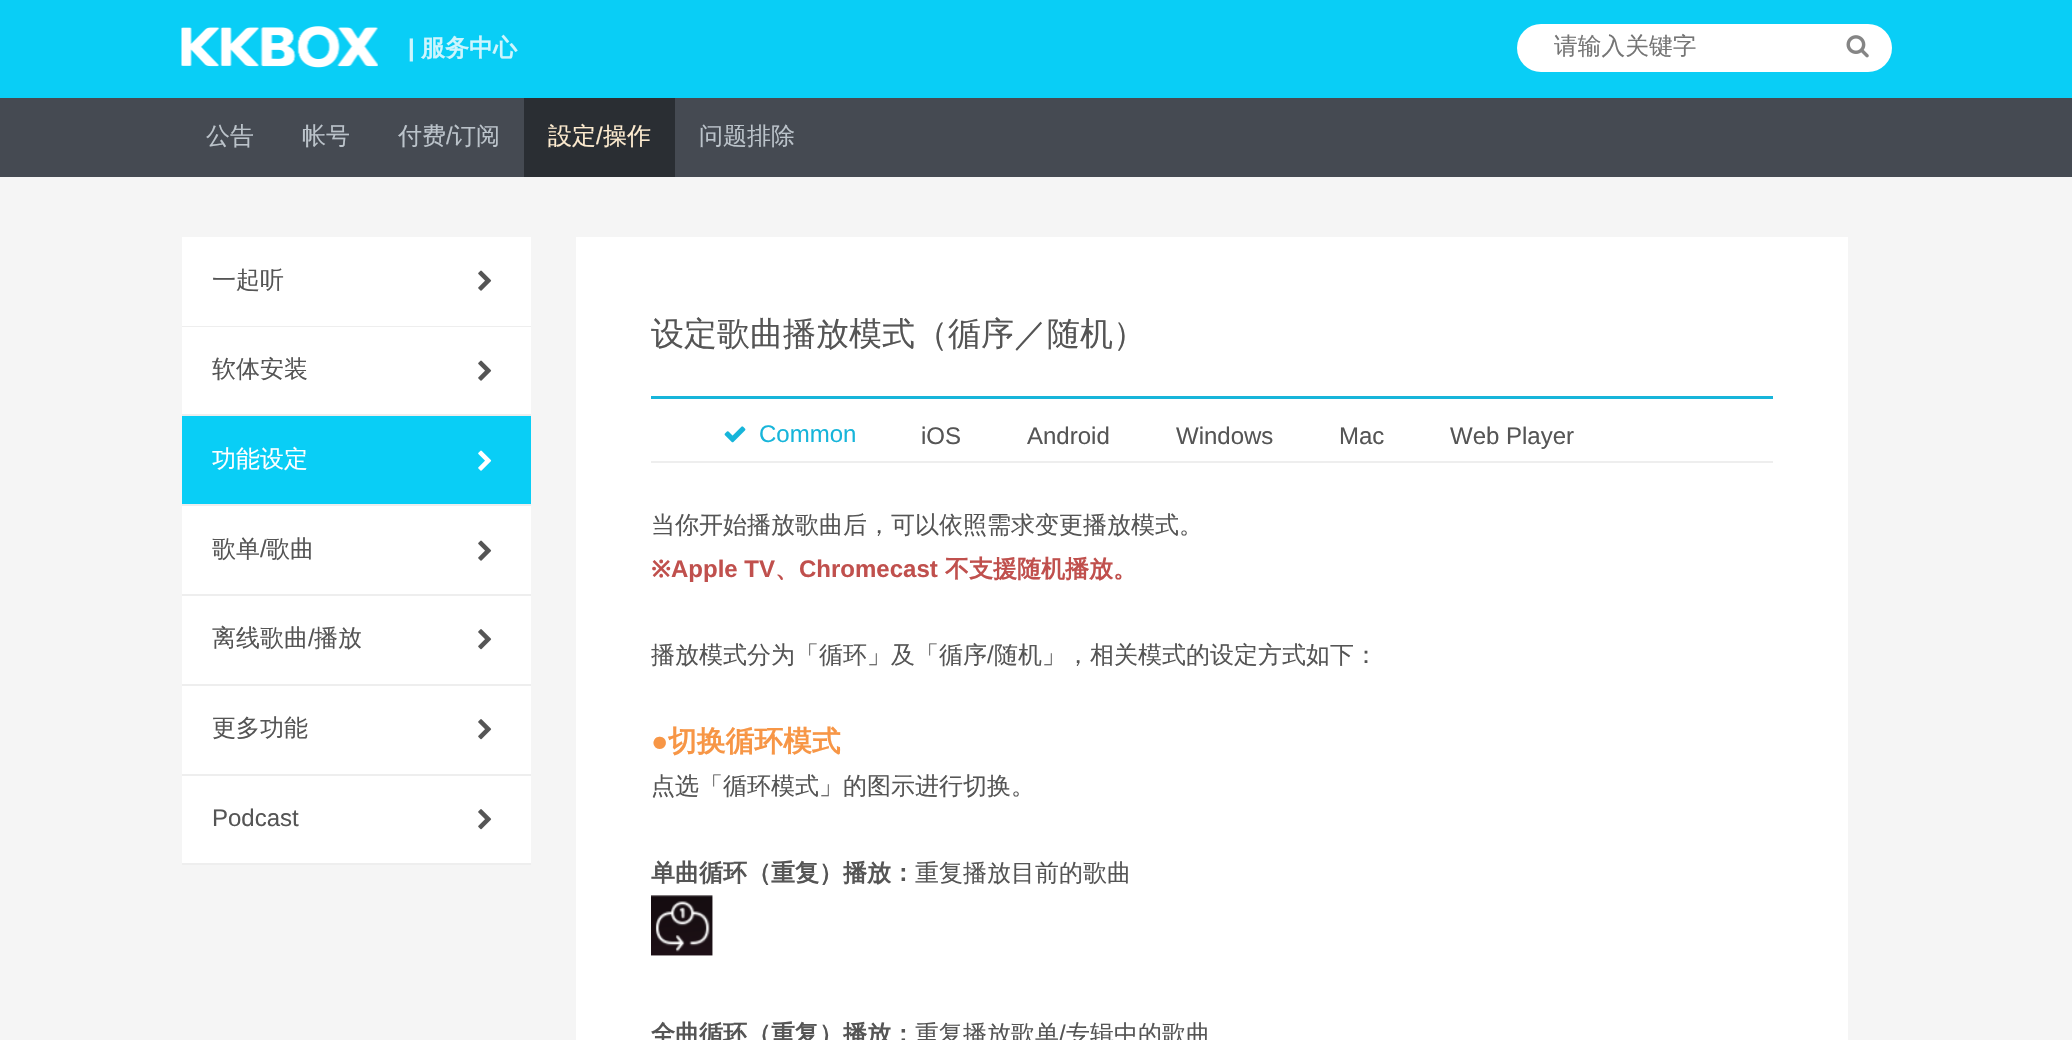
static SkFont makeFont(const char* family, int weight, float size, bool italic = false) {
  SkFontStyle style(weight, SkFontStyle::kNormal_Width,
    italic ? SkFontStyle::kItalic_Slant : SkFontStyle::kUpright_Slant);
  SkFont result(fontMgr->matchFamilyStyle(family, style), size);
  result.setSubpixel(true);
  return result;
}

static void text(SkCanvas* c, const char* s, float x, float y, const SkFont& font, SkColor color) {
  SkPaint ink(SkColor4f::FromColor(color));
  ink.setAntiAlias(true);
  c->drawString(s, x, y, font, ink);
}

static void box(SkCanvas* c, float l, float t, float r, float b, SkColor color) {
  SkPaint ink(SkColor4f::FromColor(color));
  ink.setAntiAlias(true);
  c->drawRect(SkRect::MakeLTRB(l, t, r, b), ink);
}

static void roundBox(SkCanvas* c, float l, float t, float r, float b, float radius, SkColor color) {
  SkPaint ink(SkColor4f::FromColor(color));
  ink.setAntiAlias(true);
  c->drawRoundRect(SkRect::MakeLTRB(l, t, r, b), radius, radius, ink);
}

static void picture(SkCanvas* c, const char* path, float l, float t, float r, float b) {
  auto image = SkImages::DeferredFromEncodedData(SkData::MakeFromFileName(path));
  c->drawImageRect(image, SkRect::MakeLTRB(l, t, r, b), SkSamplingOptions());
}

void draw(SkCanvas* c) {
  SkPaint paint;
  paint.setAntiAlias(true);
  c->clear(0xfff5f5f5);
  box(c, 0, 0, 2072, 98, 0xff09cef6);
  picture(c, "img_01.png", 181, 26, 378, 68);
  SkFont face1 = makeFont("Liberation Sans", 700, 24);
  text(c, "|", 408, 56, face1, 0xffcef5fd);
  SkFont face2 = makeFont("WenQuanYi Zen Hei", 700, 24);
  text(c, "服务中心", 421, 56, face2, 0xffcef5fd);
  roundBox(c, 1517, 24, 1892, 72, 24, 0xffffffff);
  SkFont face3 = makeFont("WenQuanYi Zen Hei", 500, 23.75f);
  text(c, "请输入关键字", 1554, 54, face3, 0xff757575);
  picture(c, "img_02.png", 1846, 35, 1869, 58);
  box(c, 0, 98, 2072, 177, 0xff454a52);
  SkFont face4 = makeFont("WenQuanYi Zen Hei", 500, 24);
  text(c, "公告", 206, 144, face4, 0xffbbc3ca);
  text(c, "帐号", 302, 144, face4, 0xffbbc3ca);
  text(c, "付费", 398, 144, face4, 0xffbbc3ca);
  SkFont face5 = makeFont("Liberation Sans", 400, 24);
  text(c, "/", 446, 144, face5, 0xffbbc3ca);
  text(c, "订阅", 452, 144, face4, 0xffbbc3ca);
  box(c, 524, 98, 675, 177, 0xff2a2e33);
  text(c, "設定", 548, 144, face4, 0xfffdebcf);
  text(c, "/", 596, 144, face5, 0xfffdebcf);
  text(c, "操作", 603, 144, face4, 0xfffdebcf);
  text(c, "问题排除", 699, 144, face4, 0xffbbc3ca);
  box(c, 182, 237, 531, 326, 0xffffffff);
  box(c, 182, 326, 531, 327, 0xffeeeeee);
  text(c, "一起听", 212, 288, face4, 0xff555555);
  picture(c, "img_03.png", 478, 270, 492, 291);
  box(c, 182, 327, 531, 414, 0xffffffff);
  box(c, 182, 414, 531, 416, 0xffeeeeee);
  text(c, "软体安装", 212, 377, face4, 0xff555555);
  picture(c, "img_03.png", 478, 360, 492, 381);
  box(c, 182, 504, 531, 506, 0xffeeeeee);
  box(c, 182, 416, 531, 504, 0xff09cef6);
  text(c, "功能设定", 212, 467, face4, 0xffffffff);
  picture(c, "img_04.png", 478, 450, 492, 471);
  box(c, 182, 506, 531, 594, 0xffffffff);
  box(c, 182, 594, 531, 596, 0xffeeeeee);
  text(c, "歌单", 212, 557, face4, 0xff555555);
  text(c, "/", 260, 557, face5, 0xff555555);
  text(c, "歌曲", 266, 557, face4, 0xff555555);
  picture(c, "img_03.png", 478, 540, 492, 561);
  box(c, 182, 596, 531, 684, 0xffffffff);
  box(c, 182, 684, 531, 686, 0xffeeeeee);
  text(c, "离线歌曲", 212, 646, face4, 0xff555555);
  text(c, "/", 308, 646, face5, 0xff555555);
  text(c, "播放", 314, 646, face4, 0xff555555);
  picture(c, "img_05.png", 478, 629, 492, 650);
  box(c, 182, 686, 531, 774, 0xffffffff);
  box(c, 182, 774, 531, 776, 0xffeeeeee);
  text(c, "更多功能", 212, 736, face4, 0xff555555);
  picture(c, "img_05.png", 478, 719, 492, 740);
  box(c, 182, 776, 531, 863, 0xffffffff);
  box(c, 182, 863, 531, 865, 0xffeeeeee);
  text(c, "Podcast", 212, 826, face5, 0xff555555);
  picture(c, "img_05.png", 478, 809, 492, 830);
  box(c, 576, 237, 1848, 1040, 0xffffffff);
  box(c, 651, 396, 1773, 399, 0xff17b5da);
  SkFont face6 = makeFont("WenQuanYi Zen Hei", 500, 33);
  text(c, "设定歌曲播放模式（循序／随机）", 651, 345, face6, 0xff555555);
  box(c, 651, 461, 1773, 463, 0xffeeeeee);
  picture(c, "img_06.png", 724, 426, 746, 443);
  text(c, "Common", 759, 442, face5, 0xff17b5da);
  text(c, "iOS", 921, 444, face5, 0xff555555);
  text(c, "Android", 1027, 444, face5, 0xff555555);
  text(c, "Windows", 1176, 444, face5, 0xff555555);
  text(c, "Mac", 1339, 444, face5, 0xff555555);
  text(c, "Web Player", 1450, 444, face5, 0xff555555);
  text(c, "当你开始播放歌曲后，可以依照需求变更播放模式。", 651, 533, face4, 0xff555555);
  SkFont face7 = makeFont("Noto Sans", 700, 24);
  text(c, "※", 651, 577, face7, 0xffc0504d);
  text(c, "Apple TV", 671, 577, face1, 0xffc0504d);
  text(c, "、", 775, 577, face2, 0xffc0504d);
  text(c, "Chromecast", 799, 577, face1, 0xffc0504d);
  text(c, "不支援随机播放。", 945, 577, face2, 0xffc0504d);
  text(c, "播放模式分为「循环」及「循序", 651, 663, face4, 0xff555555);
  text(c, "/", 987, 663, face5, 0xff555555);
  text(c, "随机」，相关模式的设定方式如下：", 994, 663, face4, 0xff555555);
  SkFont face8 = makeFont("Liberation Sans", 700, 28.75f);
  text(c, "●", 651, 751, face8, 0xfff79646);
  SkFont face9 = makeFont("WenQuanYi Zen Hei", 700, 28.75f);
  text(c, "切换循环模式", 668, 751, face9, 0xfff79646);
  text(c, "点选「循环模式」的图示进行切换。", 651, 794, face4, 0xff555555);
  text(c, "单曲循环（重复）播放：", 651, 881, face2, 0xff555555);
  text(c, "重复播放目前的歌曲", 915, 881, face4, 0xff555555);
  picture(c, "img_07.png", 651, 895, 713, 956);
  text(c, "全曲循环（重复）播放：", 651, 1042, face2, 0xff555555);
  text(c, "重复播放歌单", 915, 1042, face4, 0xff555555);
  text(c, "/", 1059, 1042, face5, 0xff555555);
  text(c, "专辑中的歌曲", 1066, 1042, face4, 0xff555555);
}
